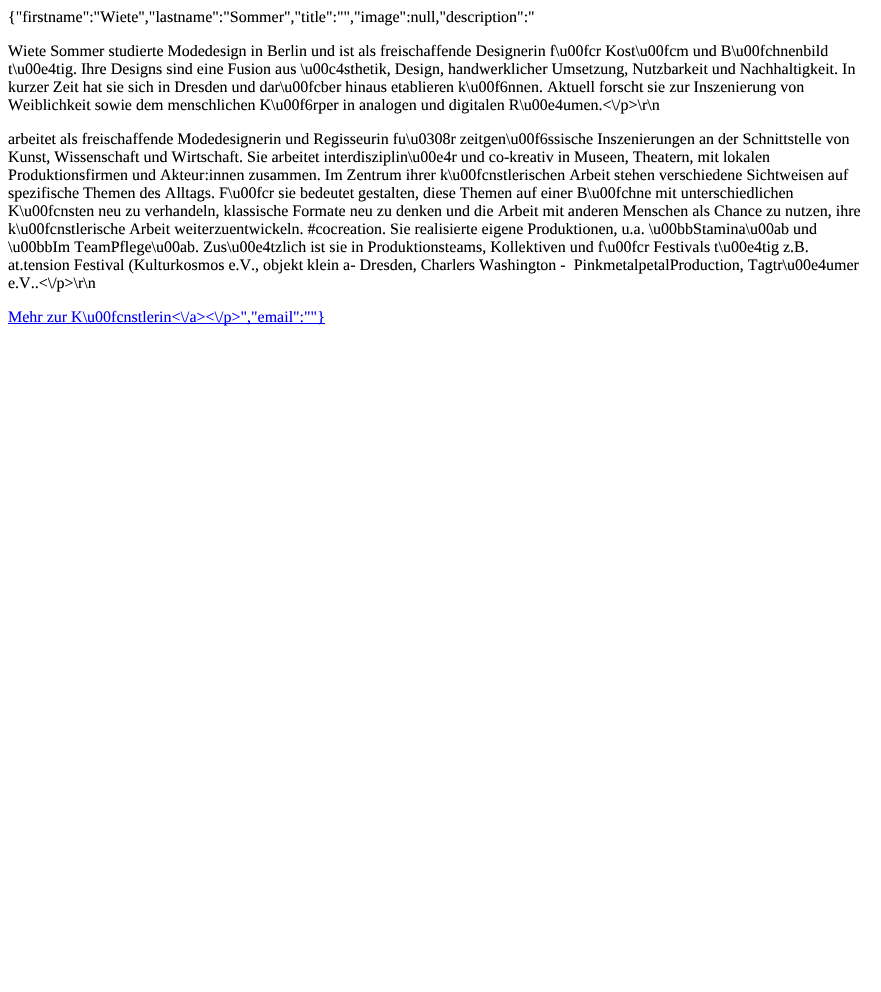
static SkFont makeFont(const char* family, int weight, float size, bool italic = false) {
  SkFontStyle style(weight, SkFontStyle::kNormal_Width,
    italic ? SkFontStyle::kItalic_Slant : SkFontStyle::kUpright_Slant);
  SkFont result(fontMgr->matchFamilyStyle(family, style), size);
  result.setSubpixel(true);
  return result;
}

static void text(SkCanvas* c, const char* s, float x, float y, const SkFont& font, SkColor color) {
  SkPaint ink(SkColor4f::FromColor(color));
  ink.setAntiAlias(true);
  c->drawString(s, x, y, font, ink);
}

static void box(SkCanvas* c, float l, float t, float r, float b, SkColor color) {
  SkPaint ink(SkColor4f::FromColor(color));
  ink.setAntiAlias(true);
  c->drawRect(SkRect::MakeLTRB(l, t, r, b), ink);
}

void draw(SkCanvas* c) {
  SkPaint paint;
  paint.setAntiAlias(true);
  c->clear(0xffffffff);
  SkFont face1 = makeFont("Liberation Serif", 400, 16);
  text(c, "{\"firstname\":\"Wiete\",\"lastname\":\"Sommer\",\"title\":\"\",\"image\":null,\"description\":\"", 8, 22, face1, 0xff000000);
  text(c, "Wiete Sommer studierte Modedesign in Berlin und ist als freischaffende Designerin f\\u00fcr Kost\\u00fcm und B\\u00fchnenbild", 8, 56, face1, 0xff000000);
  text(c, "t\\u00e4tig. Ihre Designs sind eine Fusion aus \\u00c4sthetik, Design, handwerklicher Umsetzung, Nutzbarkeit und Nachhaltigkeit. In", 8, 74, face1, 0xff000000);
  text(c, "kurzer Zeit hat sie sich in Dresden und dar\\u00fcber hinaus etablieren k\\u00f6nnen. Aktuell forscht sie zur Inszenierung von", 8, 92, face1, 0xff000000);
  text(c, "Weiblichkeit sowie dem menschlichen K\\u00f6rper in analogen und digitalen R\\u00e4umen.<\\/p>\\r\\n", 8, 110, face1, 0xff000000);
  text(c, "arbeitet als freischaffende Modedesignerin und Regisseurin fu\\u0308r zeitgen\\u00f6ssische Inszenierungen an der Schnittstelle von", 8, 144, face1, 0xff000000);
  text(c, "Kunst, Wissenschaft und Wirtschaft. Sie arbeitet interdisziplin\\u00e4r und co-kreativ in Museen, Theatern, mit lokalen", 8, 162, face1, 0xff000000);
  text(c, "Produktionsfirmen und Akteur:innen zusammen. Im Zentrum ihrer k\\u00fcnstlerischen Arbeit stehen verschiedene Sichtweisen auf", 8, 180, face1, 0xff000000);
  text(c, "spezifische Themen des Alltags. F\\u00fcr sie bedeutet gestalten, diese Themen auf einer B\\u00fchne mit unterschiedlichen", 8, 198, face1, 0xff000000);
  text(c, "K\\u00fcnsten neu zu verhandeln, klassische Formate neu zu denken und die Arbeit mit anderen Menschen als Chance zu nutzen, ihre", 8, 216, face1, 0xff000000);
  text(c, "k\\u00fcnstlerische Arbeit weiterzuentwickeln. #cocreation. Sie realisierte eigene Produktionen, u.a. \\u00bbStamina\\u00ab und", 8, 234, face1, 0xff000000);
  text(c, "\\u00bbIm TeamPflege\\u00ab. Zus\\u00e4tzlich ist sie in Produktionsteams, Kollektiven und f\\u00fcr Festivals t\\u00e4tig z.B.", 8, 252, face1, 0xff000000);
  text(c, "at.tension Festival (Kulturkosmos e.V., objekt klein a- Dresden, Charlers Washington -  PinkmetalpetalProduction, Tagtr\\u00e4umer", 8, 270, face1, 0xff000000);
  text(c, "e.V..<\\/p>\\r\\n", 8, 288, face1, 0xff000000);
  box(c, 8, 323, 325, 324, 0xff0000ee);
  text(c, "Mehr zur K\\u00fcnstlerin<\\/a><\\/p>\",\"email\":\"\"}", 8, 322, face1, 0xff0000ee);
}
